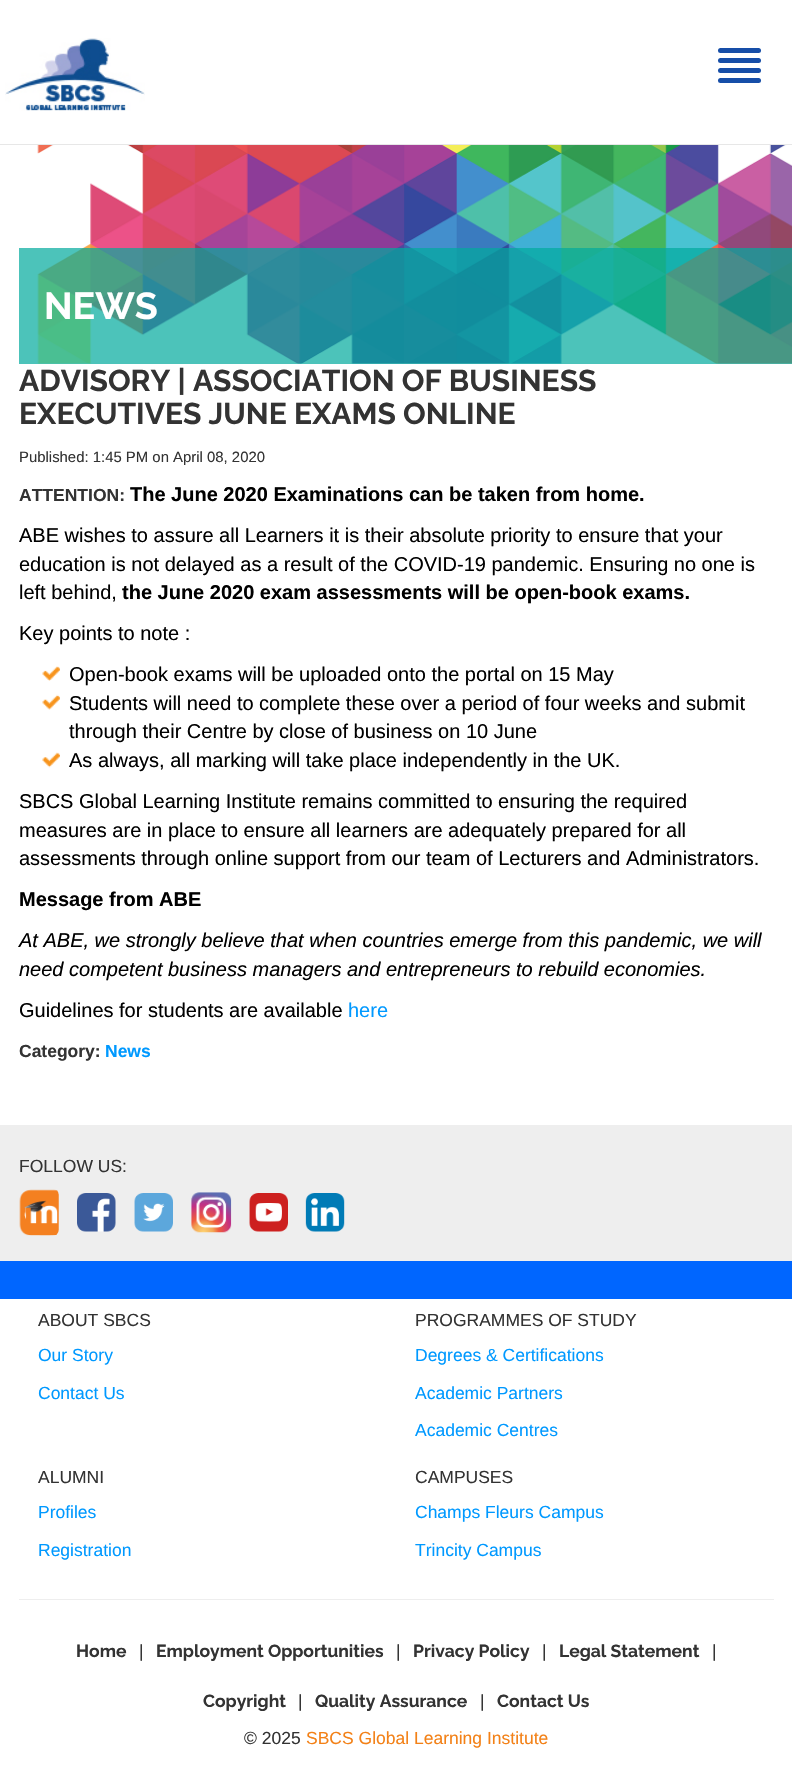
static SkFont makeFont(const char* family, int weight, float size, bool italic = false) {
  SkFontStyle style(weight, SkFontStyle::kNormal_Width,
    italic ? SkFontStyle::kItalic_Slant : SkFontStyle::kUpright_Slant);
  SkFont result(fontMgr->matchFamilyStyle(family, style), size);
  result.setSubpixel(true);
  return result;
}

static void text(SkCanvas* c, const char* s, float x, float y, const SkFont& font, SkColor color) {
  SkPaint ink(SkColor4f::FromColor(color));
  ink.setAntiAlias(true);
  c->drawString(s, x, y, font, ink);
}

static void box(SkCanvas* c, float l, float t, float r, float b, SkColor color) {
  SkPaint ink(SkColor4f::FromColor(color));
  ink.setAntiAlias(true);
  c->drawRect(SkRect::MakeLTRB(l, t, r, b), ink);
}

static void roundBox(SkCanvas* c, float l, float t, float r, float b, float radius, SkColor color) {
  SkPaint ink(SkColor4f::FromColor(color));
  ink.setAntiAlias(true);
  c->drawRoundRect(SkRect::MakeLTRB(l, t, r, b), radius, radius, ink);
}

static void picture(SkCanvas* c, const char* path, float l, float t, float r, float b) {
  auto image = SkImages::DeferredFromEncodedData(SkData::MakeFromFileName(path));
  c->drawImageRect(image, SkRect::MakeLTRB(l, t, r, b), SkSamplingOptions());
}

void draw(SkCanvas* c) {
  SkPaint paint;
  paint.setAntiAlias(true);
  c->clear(0xffffffff);
  box(c, 0, 144, 792, 145, 0xffe7e7e7);
  picture(c, "img_01.png", 5, 38, 145, 111);
  roundBox(c, 718, 48, 761, 53, 2.5f, 0xff164ea8);
  roundBox(c, 718, 58, 761, 63, 2.5f, 0xff164ea8);
  roundBox(c, 718, 68, 761, 73, 2.5f, 0xff164ea8);
  roundBox(c, 718, 78, 761, 83, 2.5f, 0xff164ea8);
  picture(c, "img_02.png", 37, 145, 792, 364);
  box(c, 19, 248, 792, 364, 0xb300a99d);
  SkFont face1 = makeFont("Raleway", 700, 37.5f);
  text(c, "NEWS", 44, 319, face1, 0xffffffff);
  SkFont face2 = makeFont("Raleway", 700, 30);
  text(c, "ADVISORY | ASSOCIATION OF BUSINESS", 19, 391, face2, 0xff333333);
  text(c, "EXECUTIVES JUNE EXAMS ONLINE", 19, 424, face2, 0xff333333);
  SkFont face3 = makeFont("Liberation Sans", 400, 14.9f);
  text(c, "Published: 1:45 PM on April 08, 2020", 19, 462, face3, 0xff333333);
  SkFont face4 = makeFont("Liberation Sans", 700, 17.5f);
  text(c, "ATTENTION:", 19, 501, face4, 0xff333333);
  SkFont face5 = makeFont("Liberation Sans", 700, 20);
  text(c, "The June 2020 Examinations can be taken from home.", 130, 501, face5, 0xff000000);
  SkFont face6 = makeFont("Liberation Sans", 400, 20);
  text(c, "ABE wishes to assure all Learners it is their absolute priority to ensure that your", 19, 542, face6, 0xff000000);
  text(c, "education is not delayed as a result of the COVID-19 pandemic. Ensuring no one is", 19, 571, face6, 0xff000000);
  text(c, "left behind,", 19, 599, face6, 0xff000000);
  text(c, "the June 2020 exam assessments will be open-book exams.", 122, 599, face5, 0xff000000);
  text(c, "Key points to note :", 19, 640, face6, 0xff000000);
  picture(c, "img_03.png", 42, 666, 60, 681);
  text(c, "Open-book exams will be uploaded onto the portal on 15 May", 69, 681, face6, 0xff000000);
  picture(c, "img_04.png", 42, 694, 60, 710);
  text(c, "Students will need to complete these over a period of four weeks and submit", 69, 710, face6, 0xff000000);
  text(c, "through their Centre by close of business on 10 June", 69, 738, face6, 0xff000000);
  picture(c, "img_05.png", 42, 752, 60, 768);
  text(c, "As always, all marking will take place independently in the UK.", 69, 767, face6, 0xff000000);
  text(c, "SBCS Global Learning Institute remains committed to ensuring the required", 19, 808, face6, 0xff000000);
  text(c, "measures are in place to ensure all learners are adequately prepared for all", 19, 837, face6, 0xff000000);
  text(c, "assessments through online support from our team of Lecturers and Administrators.", 19, 865, face6, 0xff000000);
  text(c, "Message from ABE", 19, 906, face5, 0xff000000);
  SkFont face7 = makeFont("Liberation Sans", 400, 20, true);
  text(c, "At ABE, we strongly believe that when countries emerge from this pandemic, we will", 19, 947, face7, 0xff000000);
  text(c, "need competent business managers and entrepreneurs to rebuild economies.", 19, 976, face7, 0xff000000);
  text(c, "Guidelines for students are available", 19, 1017, face6, 0xff000000);
  text(c, "here", 348, 1017, face6, 0xff0099ff);
  text(c, "Category:", 19, 1057, face4, 0xff333333);
  text(c, "News", 105, 1057, face4, 0xff0099ff);
  box(c, 0, 1125, 792, 1261, 0xffeeeeee);
  SkFont face8 = makeFont("Liberation Sans", 400, 17.5f);
  text(c, "FOLLOW US:", 19, 1172, face8, 0xff333333);
  picture(c, "img_06.png", 19, 1189, 59, 1236);
  picture(c, "img_07.png", 77, 1193, 116, 1232);
  picture(c, "img_08.png", 134, 1193, 173, 1232);
  picture(c, "img_09.png", 191, 1192, 232, 1233);
  picture(c, "img_10.png", 249, 1193, 288, 1232);
  picture(c, "img_11.png", 305, 1193, 345, 1232);
  box(c, 0, 1261, 792, 1299, 0xff0066ff);
  text(c, "ABOUT SBCS", 38, 1326, face8, 0xff333333);
  text(c, "Our Story", 38, 1361, face8, 0xff0099ff);
  text(c, "Contact Us", 38, 1399, face8, 0xff0099ff);
  text(c, "PROGRAMMES OF STUDY", 415, 1326, face8, 0xff333333);
  text(c, "Degrees & Certifications", 415, 1361, face8, 0xff0099ff);
  text(c, "Academic Partners", 415, 1399, face8, 0xff0099ff);
  text(c, "Academic Centres", 415, 1436, face8, 0xff0099ff);
  text(c, "ALUMNI", 38, 1483, face8, 0xff333333);
  text(c, "Profiles", 38, 1518, face8, 0xff0099ff);
  text(c, "Registration", 38, 1556, face8, 0xff0099ff);
  text(c, "CAMPUSES", 415, 1483, face8, 0xff333333);
  text(c, "Champs Fleurs Campus", 415, 1518, face8, 0xff0099ff);
  text(c, "Trincity Campus", 415, 1556, face8, 0xff0099ff);
  box(c, 19, 1599, 774, 1600, 0xffeeeeee);
  SkFont face9 = makeFont("Raleway", 700, 17.5f);
  text(c, "Home", 76, 1657, face9, 0xff333333);
  text(c, "|", 139, 1657, face8, 0xff333333);
  text(c, "Employment Opportunities", 156, 1657, face9, 0xff333333);
  text(c, "|", 396, 1657, face8, 0xff333333);
  text(c, "Privacy Policy", 413, 1657, face9, 0xff333333);
  text(c, "|", 542, 1657, face8, 0xff333333);
  text(c, "Legal Statement", 559, 1657, face9, 0xff333333);
  text(c, "|", 712, 1657, face8, 0xff333333);
  text(c, "Copyright", 203, 1707, face9, 0xff333333);
  text(c, "|", 298, 1707, face8, 0xff333333);
  text(c, "Quality Assurance", 315, 1707, face9, 0xff333333);
  text(c, "|", 480, 1707, face8, 0xff333333);
  text(c, "Contact Us", 497, 1707, face9, 0xff333333);
  text(c, "© 2025", 244, 1744, face8, 0xff333333);
  text(c, "SBCS Global Learning Institute", 306, 1744, face8, 0xfff38117);
}
